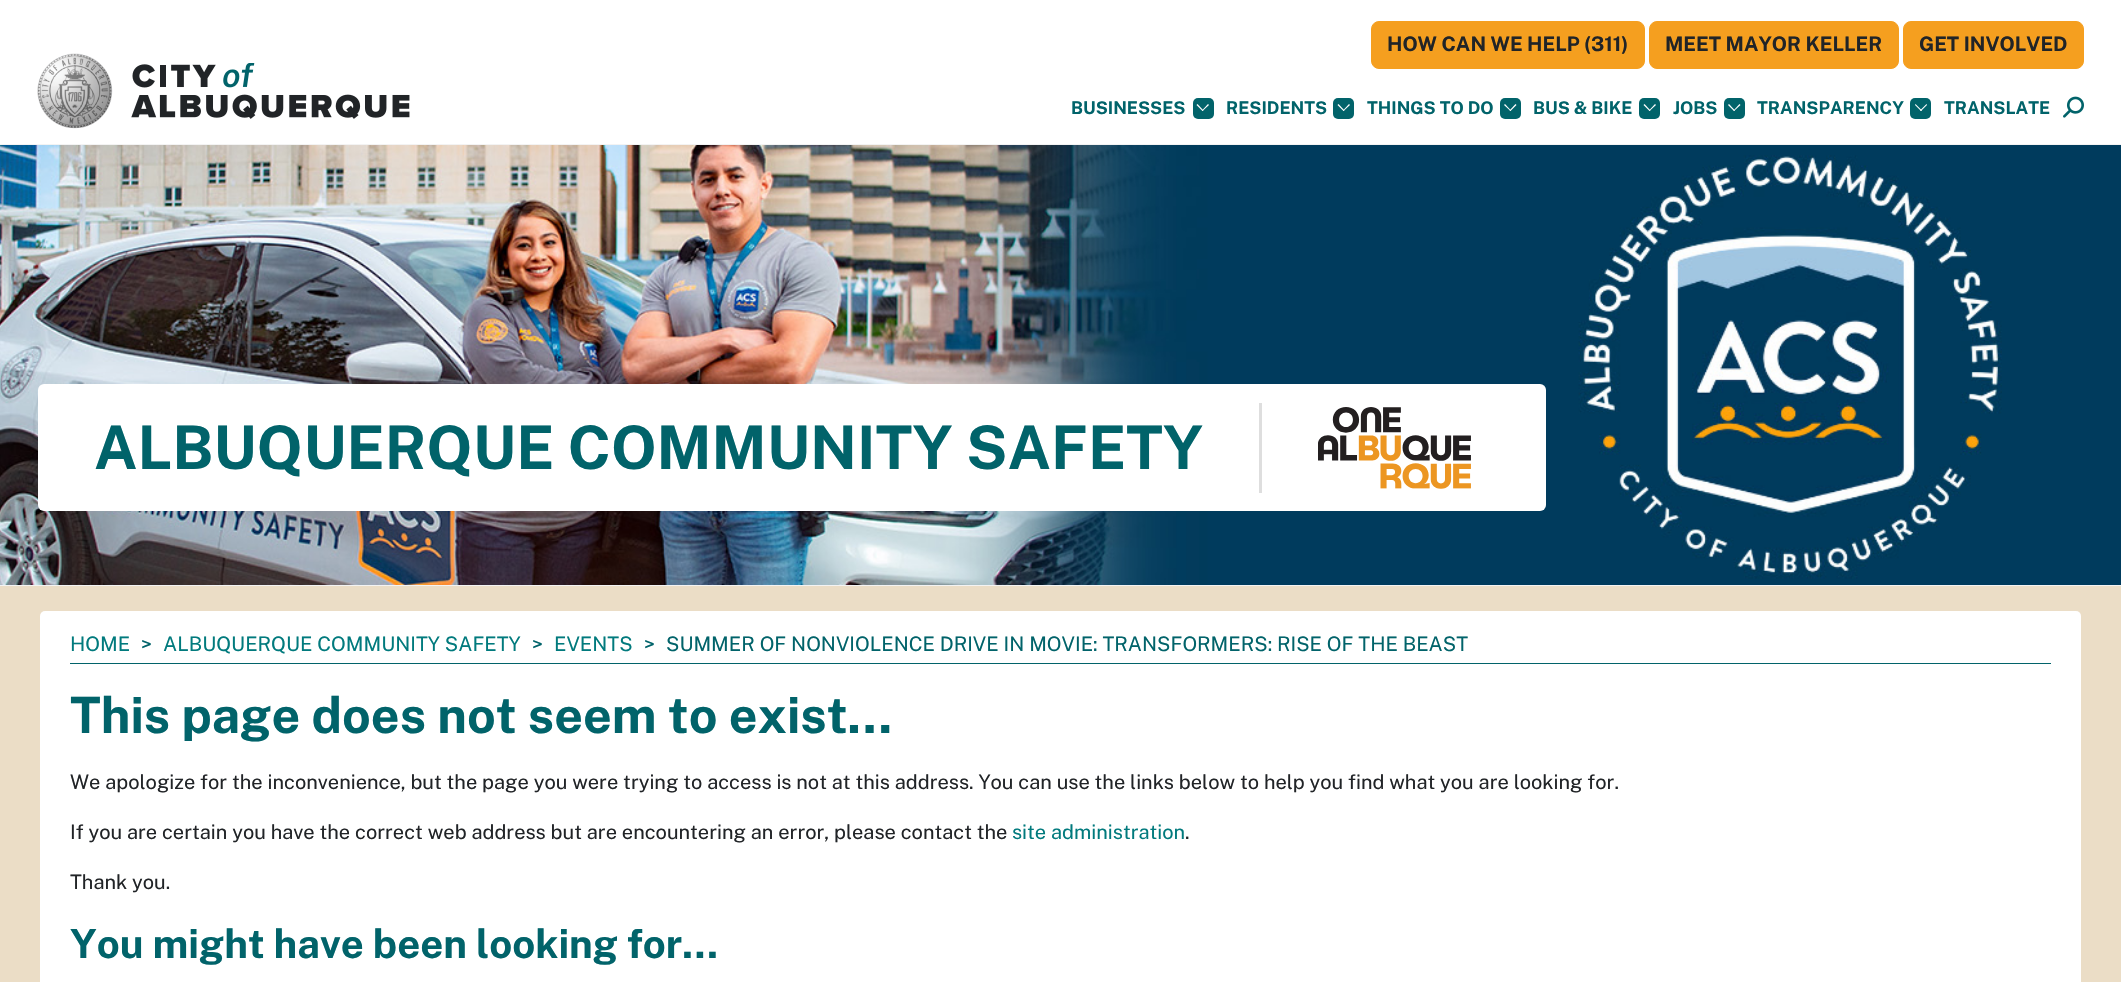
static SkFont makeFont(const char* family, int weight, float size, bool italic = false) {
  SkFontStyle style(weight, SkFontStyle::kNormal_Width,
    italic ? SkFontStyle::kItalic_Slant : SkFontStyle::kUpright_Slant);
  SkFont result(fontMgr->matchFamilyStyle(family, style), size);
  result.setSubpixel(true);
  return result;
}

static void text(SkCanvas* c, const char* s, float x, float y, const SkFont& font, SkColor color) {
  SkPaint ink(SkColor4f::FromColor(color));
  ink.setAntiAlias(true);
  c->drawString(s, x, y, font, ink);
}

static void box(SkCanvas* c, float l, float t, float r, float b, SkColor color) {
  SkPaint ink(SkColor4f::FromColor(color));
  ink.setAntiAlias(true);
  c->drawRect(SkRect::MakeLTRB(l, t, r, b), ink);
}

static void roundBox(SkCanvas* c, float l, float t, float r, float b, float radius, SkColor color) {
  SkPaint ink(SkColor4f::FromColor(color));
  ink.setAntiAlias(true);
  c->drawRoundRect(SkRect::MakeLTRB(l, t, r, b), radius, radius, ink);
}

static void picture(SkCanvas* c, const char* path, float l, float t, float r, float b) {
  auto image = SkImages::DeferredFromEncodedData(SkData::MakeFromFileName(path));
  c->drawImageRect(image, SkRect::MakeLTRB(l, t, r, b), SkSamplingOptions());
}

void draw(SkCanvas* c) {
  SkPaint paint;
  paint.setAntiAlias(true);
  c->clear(0xffffffff);
  picture(c, "img_01.png", 37, 53, 113, 129);
  picture(c, "img_02.png", 131, 63, 410, 119);
  paint.setColor(0xfff59f1f);
  c->drawRoundRect(SkRect::MakeLTRB(1371.5f, 21.5f, 1644.5f, 68.5f), 7.5f, 7.5f, paint);
  paint.setStyle(SkPaint::kStroke_Style);
  paint.setStrokeWidth(1);
  c->drawRoundRect(SkRect::MakeLTRB(1371.5f, 21.5f, 1644.5f, 68.5f), 7.5f, 7.5f, paint);
  SkFont face1 = makeFont("Public Sans", 700, 20);
  text(c, "HOW CAN WE HELP (311)", 1387, 51, face1, 0xff212427);
  paint.setStyle(SkPaint::kFill_Style);
  c->drawRoundRect(SkRect::MakeLTRB(1649.5f, 21.5f, 1898.5f, 68.5f), 7.5f, 7.5f, paint);
  paint.setStyle(SkPaint::kStroke_Style);
  c->drawRoundRect(SkRect::MakeLTRB(1649.5f, 21.5f, 1898.5f, 68.5f), 7.5f, 7.5f, paint);
  text(c, "MEET MAYOR KELLER", 1665, 51, face1, 0xff212427);
  paint.setStyle(SkPaint::kFill_Style);
  c->drawRoundRect(SkRect::MakeLTRB(1903.5f, 21.5f, 2083.5f, 68.5f), 7.5f, 7.5f, paint);
  paint.setStyle(SkPaint::kStroke_Style);
  c->drawRoundRect(SkRect::MakeLTRB(1903.5f, 21.5f, 2083.5f, 68.5f), 7.5f, 7.5f, paint);
  text(c, "GET INVOLVED", 1919, 51, face1, 0xff212427);
  SkFont face2 = makeFont("Public Sans", 700, 17.5f);
  text(c, "BUSINESSES", 1071, 114, face2, 0xff01636a);
  roundBox(c, 1193, 98, 1214, 119, 5, 0xff01636a);
  paint.setStyle(SkPaint::kFill_Style);
  paint.setColor(0xffffffff);
  c->drawPath(SkPathBuilder().moveTo(1208, 104).lineTo(1209, 105).lineTo(1202.5f, 111).lineTo(1202, 110.5f).close().detach(), paint);
  c->drawPath(SkPathBuilder().moveTo(1197.5f, 104).lineTo(1203.5f, 110.5f).lineTo(1202.5f, 111).lineTo(1196.5f, 105).close().detach(), paint);
  text(c, "RESIDENTS", 1226, 114, face2, 0xff01636a);
  roundBox(c, 1333, 98, 1354, 119, 5, 0xff01636a);
  c->drawPath(SkPathBuilder().moveTo(1349, 104).lineTo(1350, 105).lineTo(1343.5f, 111).lineTo(1343, 110.5f).close().detach(), paint);
  c->drawPath(SkPathBuilder().moveTo(1338.5f, 104).lineTo(1344.5f, 110.5f).lineTo(1343.5f, 111).lineTo(1337.5f, 105).close().detach(), paint);
  text(c, "THINGS TO DO", 1367, 114, face2, 0xff01636a);
  roundBox(c, 1500, 98, 1521, 119, 5, 0xff01636a);
  c->drawPath(SkPathBuilder().moveTo(1515.5f, 104).lineTo(1516.5f, 105).lineTo(1510.5f, 111).lineTo(1509.5f, 110.5f).close().detach(), paint);
  c->drawPath(SkPathBuilder().moveTo(1505, 104).lineTo(1511, 110.5f).lineTo(1510.5f, 111).lineTo(1504, 105).close().detach(), paint);
  text(c, "BUS & BIKE", 1533, 114, face2, 0xff01636a);
  roundBox(c, 1639, 98, 1660, 119, 5, 0xff01636a);
  c->drawPath(SkPathBuilder().moveTo(1655, 104).lineTo(1656, 105).lineTo(1649.5f, 111).lineTo(1649, 110.5f).close().detach(), paint);
  c->drawPath(SkPathBuilder().moveTo(1644.5f, 104).lineTo(1650.5f, 110.5f).lineTo(1649.5f, 111).lineTo(1643.5f, 105).close().detach(), paint);
  text(c, "JOBS", 1673, 114, face2, 0xff01636a);
  roundBox(c, 1724, 98, 1745, 119, 5, 0xff01636a);
  c->drawPath(SkPathBuilder().moveTo(1739.5f, 104).lineTo(1740.5f, 105).lineTo(1734, 111).lineTo(1733.5f, 110.5f).close().detach(), paint);
  c->drawPath(SkPathBuilder().moveTo(1729, 104).lineTo(1735, 110.5f).lineTo(1734, 111).lineTo(1728, 105).close().detach(), paint);
  text(c, "TRANSPARENCY", 1757, 114, face2, 0xff01636a);
  roundBox(c, 1910, 98, 1931, 119, 5, 0xff01636a);
  c->drawPath(SkPathBuilder().moveTo(1926.5f, 104).lineTo(1927, 105).lineTo(1921, 111).lineTo(1920, 110.5f).close().detach(), paint);
  c->drawPath(SkPathBuilder().moveTo(1915.5f, 104).lineTo(1922, 110.5f).lineTo(1921, 111).lineTo(1915, 105).close().detach(), paint);
  text(c, "TRANSLATE", 1944, 114, face2, 0xff01636a);
  picture(c, "img_03.png", 2063, 96, 2084, 118);
  box(c, 0, 586, 2121, 982, 0xffebddc6);
  box(c, 0, 144, 2121, 145, 0xfff3f3f3);
  box(c, 0, 585, 2121, 586, 0xfff3f3f3);
  picture(c, "img_04.png", 0, 145, 2121, 585);
  roundBox(c, 38, 384, 1546, 511, 6, 0xffffffff);
  box(c, 1259, 403, 1262, 493, 0xffdedede);
  SkFont face3 = makeFont("Public Sans", 700, 60);
  text(c, "ALBUQUERQUE COMMUNITY SAFETY", 94, 469, face3, 0xff01636a);
  picture(c, "img_05.png", 1318, 407, 1471, 489);
  roundBox(c, 40, 611, 2081, 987, 5, 0xffffffff);
  box(c, 70, 663, 2051, 664, 0xff01636a);
  SkFont face4 = makeFont("Public Sans", 400, 20);
  text(c, "HOME", 70, 651, face4, 0xff017a7d);
  text(c, ">", 141, 651, face4, 0xff01636a);
  text(c, "ALBUQUERQUE COMMUNITY SAFETY", 163, 651, face4, 0xff017a7d);
  text(c, ">", 532, 651, face4, 0xff01636a);
  text(c, "EVENTS", 554, 651, face4, 0xff017a7d);
  text(c, ">", 644, 651, face4, 0xff01636a);
  text(c, "SUMMER OF NONVIOLENCE DRIVE IN MOVIE: TRANSFORMERS: RISE OF THE BEAST", 666, 651, face4, 0xff01636a);
  SkFont face5 = makeFont("Public Sans", 700, 50);
  text(c, "This page does not seem to exist…", 70, 733, face5, 0xff01636a);
  text(c, "We apologize for the inconvenience, but the page you were trying to access is not at this address. You can use the links below to help you find what you are looking for.", 70, 789, face4, 0xff212427);
  text(c, "If you are certain you have the correct web address but are encountering an error, please contact the", 70, 839, face4, 0xff212427);
  text(c, "site administration", 1012, 839, face4, 0xff017a7d);
  text(c, ".", 1185, 839, face4, 0xff212427);
  text(c, "Thank you.", 70, 889, face4, 0xff212427);
  SkFont face6 = makeFont("Public Sans", 700, 40);
  text(c, "You might have been looking for…", 70, 958, face6, 0xff01636a);
}
